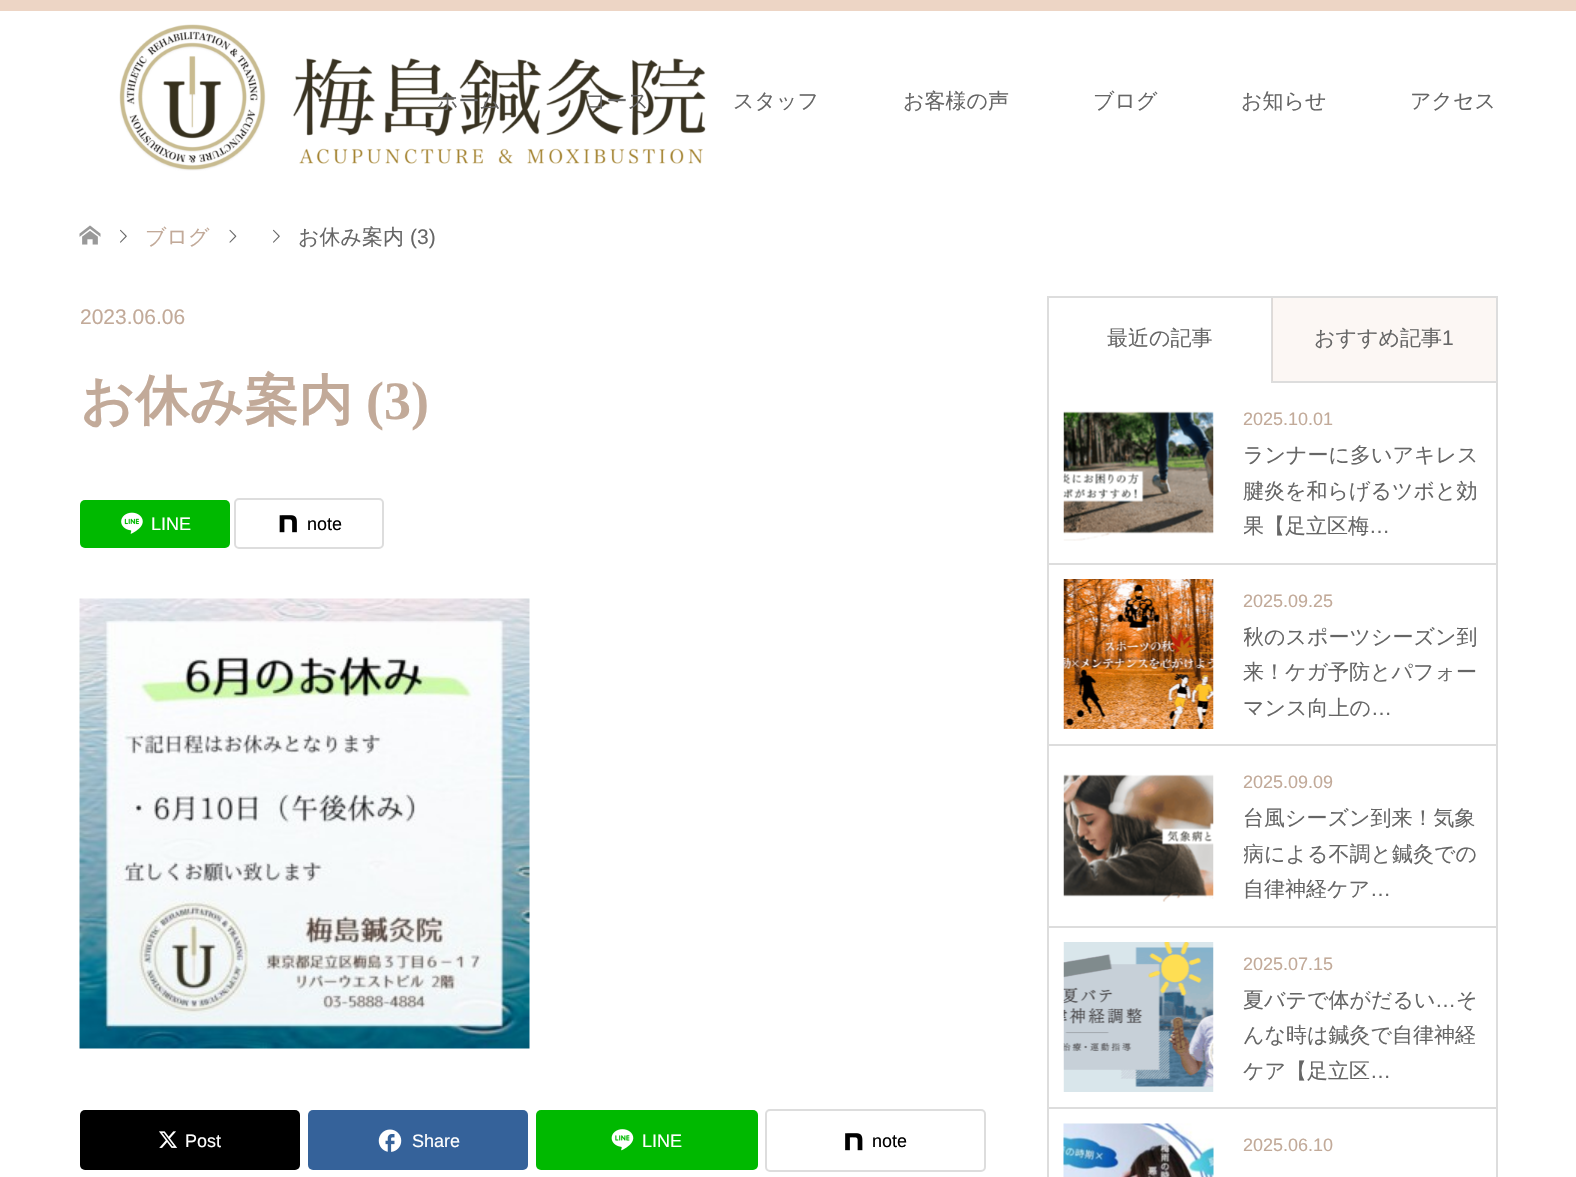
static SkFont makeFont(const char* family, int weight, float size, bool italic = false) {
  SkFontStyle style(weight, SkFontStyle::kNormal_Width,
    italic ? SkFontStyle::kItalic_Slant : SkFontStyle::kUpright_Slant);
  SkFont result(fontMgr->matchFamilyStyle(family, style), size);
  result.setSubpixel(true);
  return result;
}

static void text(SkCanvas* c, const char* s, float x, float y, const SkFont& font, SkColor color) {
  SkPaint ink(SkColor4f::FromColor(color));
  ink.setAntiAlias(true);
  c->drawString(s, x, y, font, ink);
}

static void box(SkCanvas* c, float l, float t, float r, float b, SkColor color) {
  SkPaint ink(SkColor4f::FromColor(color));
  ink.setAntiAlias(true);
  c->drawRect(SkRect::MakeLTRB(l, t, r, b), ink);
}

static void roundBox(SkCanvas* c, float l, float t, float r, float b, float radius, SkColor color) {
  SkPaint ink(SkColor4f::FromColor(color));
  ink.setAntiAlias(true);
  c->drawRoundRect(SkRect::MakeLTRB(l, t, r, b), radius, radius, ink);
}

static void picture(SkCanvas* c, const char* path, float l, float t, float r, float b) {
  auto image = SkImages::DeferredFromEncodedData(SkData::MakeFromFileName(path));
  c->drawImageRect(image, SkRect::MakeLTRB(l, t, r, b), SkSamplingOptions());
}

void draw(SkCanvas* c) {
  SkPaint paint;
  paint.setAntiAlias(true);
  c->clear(0xffffffff);
  box(c, 1273, 298, 1496, 381, 0xfffcf7f4);
  box(c, 0, 0, 1576, 11, 0xffedd5c5);
  picture(c, "img_01.png", 119, 24, 706, 171);
  SkFont face1 = makeFont("WenQuanYi Zen Hei", 500, 21);
  text(c, "ホーム", 437, 108, face1, 0xff666666);
  text(c, "コース", 585, 108, face1, 0xff666666);
  text(c, "スタッフ", 733, 108, face1, 0xff666666);
  text(c, "お客様の声", 903, 108, face1, 0xff666666);
  text(c, "ブログ", 1093, 108, face1, 0xff666666);
  text(c, "お知らせ", 1241, 108, face1, 0xff666666);
  text(c, "アクセス", 1410, 108, face1, 0xff666666);
  picture(c, "img_02.png", 79, 225, 101, 245);
  picture(c, "img_03.png", 120, 229, 127, 243);
  text(c, "ブログ", 145, 244, face1, 0xffc2aa99);
  picture(c, "img_04.png", 229, 229, 237, 243);
  picture(c, "img_03.png", 273, 229, 280, 243);
  text(c, "お休み案内", 298, 244, face1, 0xff666666);
  SkFont face2 = makeFont("Liberation Sans", 400, 21);
  text(c, "(3)", 410, 244, face2, 0xff666666);
  text(c, "2023.06.06", 80, 324, face2, 0xffc2aa99);
  SkFont face3 = makeFont("WenQuanYi Zen Hei", 700, 54);
  text(c, "お休み案内", 80, 419, face3, 0xffc2aa99);
  SkFont face4 = makeFont("Liberation Serif", 700, 54);
  text(c, "(3)", 366, 419, face4, 0xffc2aa99);
  roundBox(c, 80, 500, 230, 548, 5, 0xff00b900);
  picture(c, "img_05.png", 121, 512, 143, 534);
  SkFont face5 = makeFont("Liberation Sans", 400, 18);
  text(c, "LINE", 151, 530, face5, 0xffffffff);
  paint.setStyle(SkPaint::kStroke_Style);
  paint.setStrokeWidth(2);
  paint.setColor(0xffdddddd);
  c->drawRoundRect(SkRect::MakeLTRB(235, 499, 383, 548), 4, 4, paint);
  picture(c, "img_06.png", 279, 515, 297, 533);
  text(c, "note", 307, 530, face5, 0xff000000);
  picture(c, "img_07.png", 79, 598, 530, 1049);
  roundBox(c, 80, 1110, 300, 1170, 5, 0xff000000);
  picture(c, "img_08.png", 159, 1131, 178, 1148);
  text(c, "Post", 185, 1147, face5, 0xffffffff);
  roundBox(c, 308, 1110, 528, 1170, 5, 0xff35629a);
  picture(c, "img_09.png", 378, 1129, 402, 1152);
  text(c, "Share", 412, 1147, face5, 0xffffffff);
  roundBox(c, 536, 1110, 758, 1170, 5, 0xff00b900);
  picture(c, "img_10.png", 611, 1129, 634, 1151);
  text(c, "LINE", 642, 1147, face5, 0xffffffff);
  c->drawRoundRect(SkRect::MakeLTRB(766, 1110, 985, 1171), 4, 4, paint);
  picture(c, "img_11.png", 845, 1133, 863, 1151);
  text(c, "note", 872, 1147, face5, 0xff000000);
  box(c, 1049, 296, 1272, 298, 0xffdddddd);
  box(c, 1271, 296, 1272, 383, 0xffdddddd);
  box(c, 1272, 296, 1273, 383, 0xffdfdad7);
  text(c, "最近の記事", 1107, 345, face1, 0xff666666);
  box(c, 1272, 296, 1497, 298, 0xffdddddd);
  box(c, 1496, 381, 1498, 1177, 0xffdddddd);
  box(c, 1496, 296, 1498, 383, 0xffdddddd);
  box(c, 1272, 381, 1496, 383, 0xffdddddd);
  text(c, "おすすめ記事", 1314, 345, face1, 0xff666666);
  text(c, "1", 1442, 345, face2, 0xff666666);
  box(c, 1047, 296, 1049, 1177, 0xffdddddd);
  box(c, 1049, 563, 1496, 565, 0xffdddddd);
  picture(c, "img_12.png", 1063, 411, 1214, 541);
  text(c, "2025.10.01", 1243, 425, face5, 0xffc2aa99);
  text(c, "ランナーに多いアキレス", 1243, 462, face1, 0xff666666);
  text(c, "腱炎を和らげるツボと効", 1243, 498, face1, 0xff666666);
  c->save();
  c->clipRect(SkRect::MakeLTRB(1244, 398, 1481, 548));
  text(c, "果【足立区梅", 1243, 533, face1, 0xff666666);
  c->restore();
  text(c, "…", 1369, 533, face2, 0xff666666);
  box(c, 1049, 744, 1496, 746, 0xffdddddd);
  picture(c, "img_13.png", 1063, 579, 1214, 729);
  text(c, "2025.09.25", 1243, 607, face5, 0xffc2aa99);
  c->save();
  c->clipRect(SkRect::MakeLTRB(1244, 579, 1481, 729));
  text(c, "秋のスポーツシーズン到", 1243, 644, face1, 0xff666666);
  c->restore();
  text(c, "来！ケガ予防とパフォー", 1243, 679, face1, 0xff666666);
  text(c, "マンス向上の", 1243, 715, face1, 0xff666666);
  text(c, "…", 1371, 715, face2, 0xff666666);
  box(c, 1049, 926, 1496, 928, 0xffdddddd);
  picture(c, "img_14.png", 1063, 774, 1214, 902);
  text(c, "2025.09.09", 1243, 788, face5, 0xffc2aa99);
  text(c, "台風シーズン到来！気象", 1243, 825, face1, 0xff666666);
  c->save();
  c->clipRect(SkRect::MakeLTRB(1244, 761, 1481, 911));
  text(c, "病による不調と鍼灸での", 1243, 861, face1, 0xff666666);
  c->restore();
  text(c, "自律神経ケア", 1243, 896, face1, 0xff666666);
  text(c, "…", 1370, 896, face2, 0xff666666);
  box(c, 1049, 1107, 1496, 1109, 0xffdddddd);
  picture(c, "img_15.png", 1063, 942, 1214, 1092);
  text(c, "2025.07.15", 1243, 970, face5, 0xffc2aa99);
  text(c, "夏バテで体がだるい", 1243, 1007, face1, 0xff666666);
  text(c, "…", 1435, 1007, face2, 0xff666666);
  text(c, "そ", 1456, 1007, face1, 0xff666666);
  text(c, "んな時は鍼灸で自律神経", 1243, 1042, face1, 0xff666666);
  text(c, "ケア【足立区", 1243, 1078, face1, 0xff666666);
  text(c, "…", 1370, 1078, face2, 0xff666666);
  picture(c, "img_16.png", 1063, 1123, 1214, 1177);
  text(c, "2025.06.10", 1243, 1151, face5, 0xffc2aa99);
}
